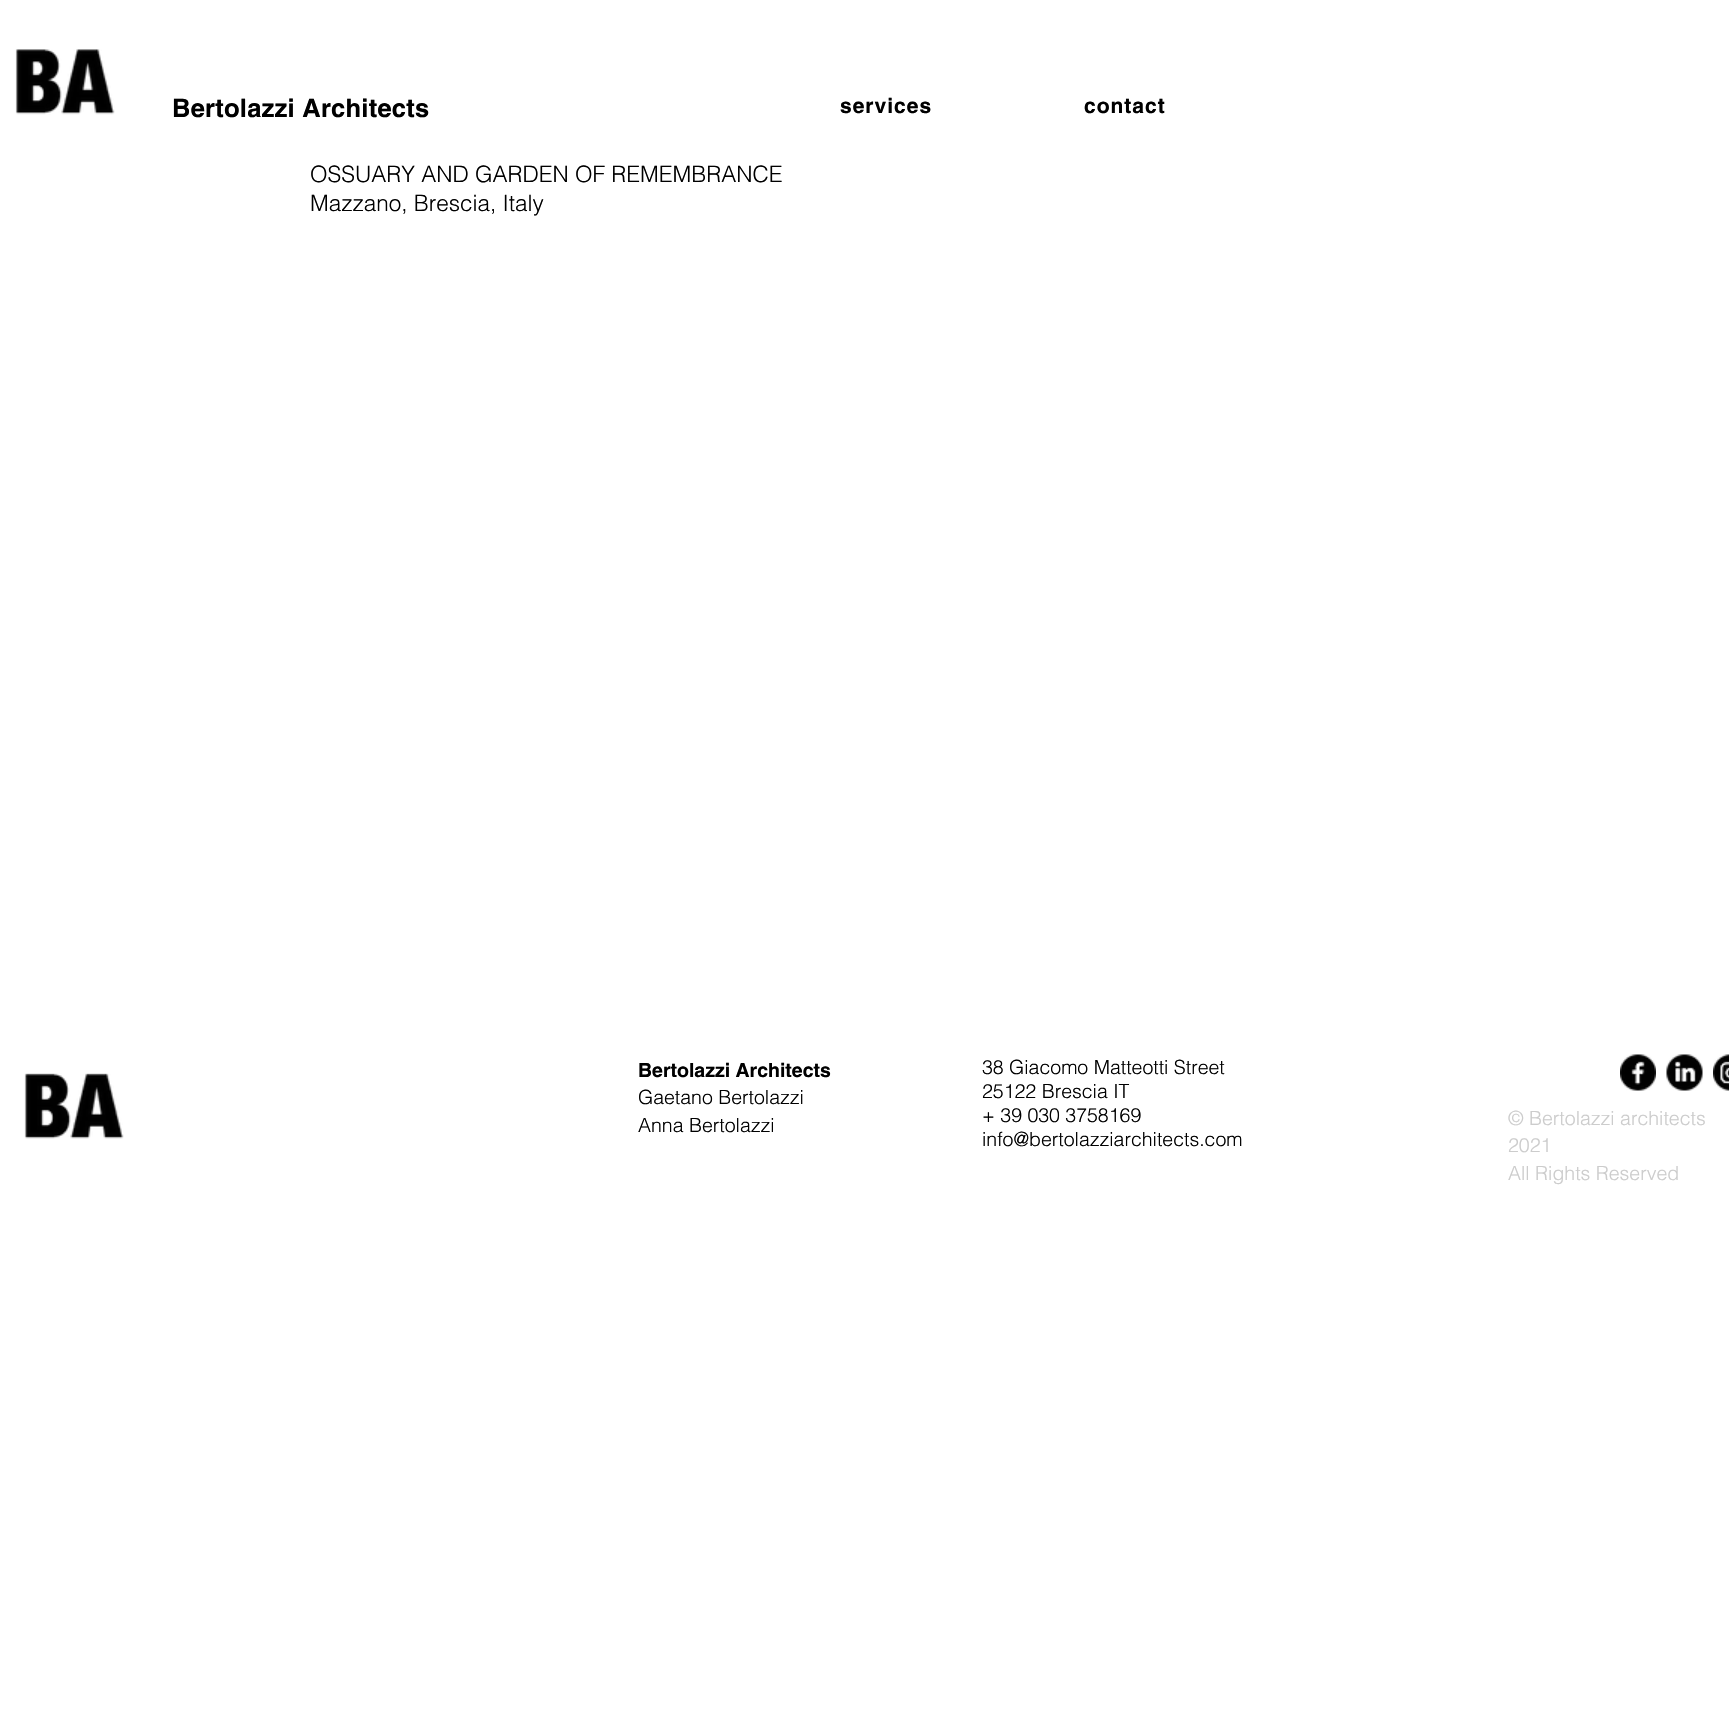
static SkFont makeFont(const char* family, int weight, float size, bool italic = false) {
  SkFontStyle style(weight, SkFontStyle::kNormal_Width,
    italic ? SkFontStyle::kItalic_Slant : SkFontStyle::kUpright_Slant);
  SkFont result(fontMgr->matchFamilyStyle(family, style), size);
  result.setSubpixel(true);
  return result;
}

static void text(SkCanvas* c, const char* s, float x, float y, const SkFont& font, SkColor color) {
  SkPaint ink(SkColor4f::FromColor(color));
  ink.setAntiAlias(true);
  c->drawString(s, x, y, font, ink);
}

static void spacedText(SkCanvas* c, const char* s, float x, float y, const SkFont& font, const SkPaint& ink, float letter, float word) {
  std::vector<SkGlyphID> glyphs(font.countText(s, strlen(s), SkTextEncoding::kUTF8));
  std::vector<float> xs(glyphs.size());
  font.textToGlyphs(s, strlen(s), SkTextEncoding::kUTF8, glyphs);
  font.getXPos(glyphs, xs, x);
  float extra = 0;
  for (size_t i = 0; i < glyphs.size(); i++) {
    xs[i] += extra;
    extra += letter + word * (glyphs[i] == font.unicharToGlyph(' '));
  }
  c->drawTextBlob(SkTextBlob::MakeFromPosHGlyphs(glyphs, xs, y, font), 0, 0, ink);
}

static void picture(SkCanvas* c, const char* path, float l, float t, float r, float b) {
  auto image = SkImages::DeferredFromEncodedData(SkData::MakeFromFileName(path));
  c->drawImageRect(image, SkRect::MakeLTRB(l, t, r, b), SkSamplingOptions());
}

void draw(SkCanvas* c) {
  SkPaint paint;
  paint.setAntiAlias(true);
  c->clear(0xffffffff);
  picture(c, "img_01.png", 15, 49, 115, 115);
  SkFont face1 = makeFont("helvetica", 700, 25.5f);
  paint.setColor(0xff000000);
  spacedText(c, "Bertolazzi Architects", 172, 117, face1, paint, 0.25f, 0);
  SkFont face2 = makeFont("helvetica", 700, 21);
  spacedText(c, "services", 840, 113, face2, paint, 1, 0);
  spacedText(c, "contact", 1084, 113, face2, paint, 1, 0);
  SkFont face3 = makeFont("helvetica", 300, 22.5f);
  text(c, "OSSUARY AND GARDEN OF REMEMBRANCE", 310, 182, face3, 0xff000000);
  text(c, "Mazzano, Brescia, Italy", 310, 211, face3, 0xff000000);
  picture(c, "img_02.png", 24, 1073, 124, 1139);
  SkFont face4 = makeFont("helvetica", 700, 19.5f);
  text(c, "Bertolazzi Architects", 638, 1077, face4, 0xff000000);
  SkFont face5 = makeFont("helvetica", 300, 19.5f);
  text(c, "Gaetano Bertolazzi", 638, 1104, face5, 0xff000000);
  text(c, "Anna Bertolazzi", 638, 1132, face5, 0xff000000);
  text(c, "38 Giacomo Matteotti Street", 982, 1074, face5, 0xff000000);
  text(c, "25122 Brescia IT", 982, 1098, face5, 0xff000000);
  text(c, "+ 39 030 3758169", 982, 1122, face5, 0xff000000);
  text(c, "info@bertolazziarchitects.com", 982, 1146, face5, 0xff000000);
  picture(c, "img_03.png", 1620, 1054, 1656, 1091);
  picture(c, "img_04.png", 1666, 1054, 1703, 1091);
  picture(c, "img_05.png", 1713, 1054, 1729, 1091);
  text(c, "© Bertolazzi architects", 1508, 1125, face5, 0xffcccccc);
  text(c, "2021", 1508, 1152, face5, 0xffcccccc);
  text(c, "All Rights Reserved", 1508, 1180, face5, 0xffcccccc);
}
